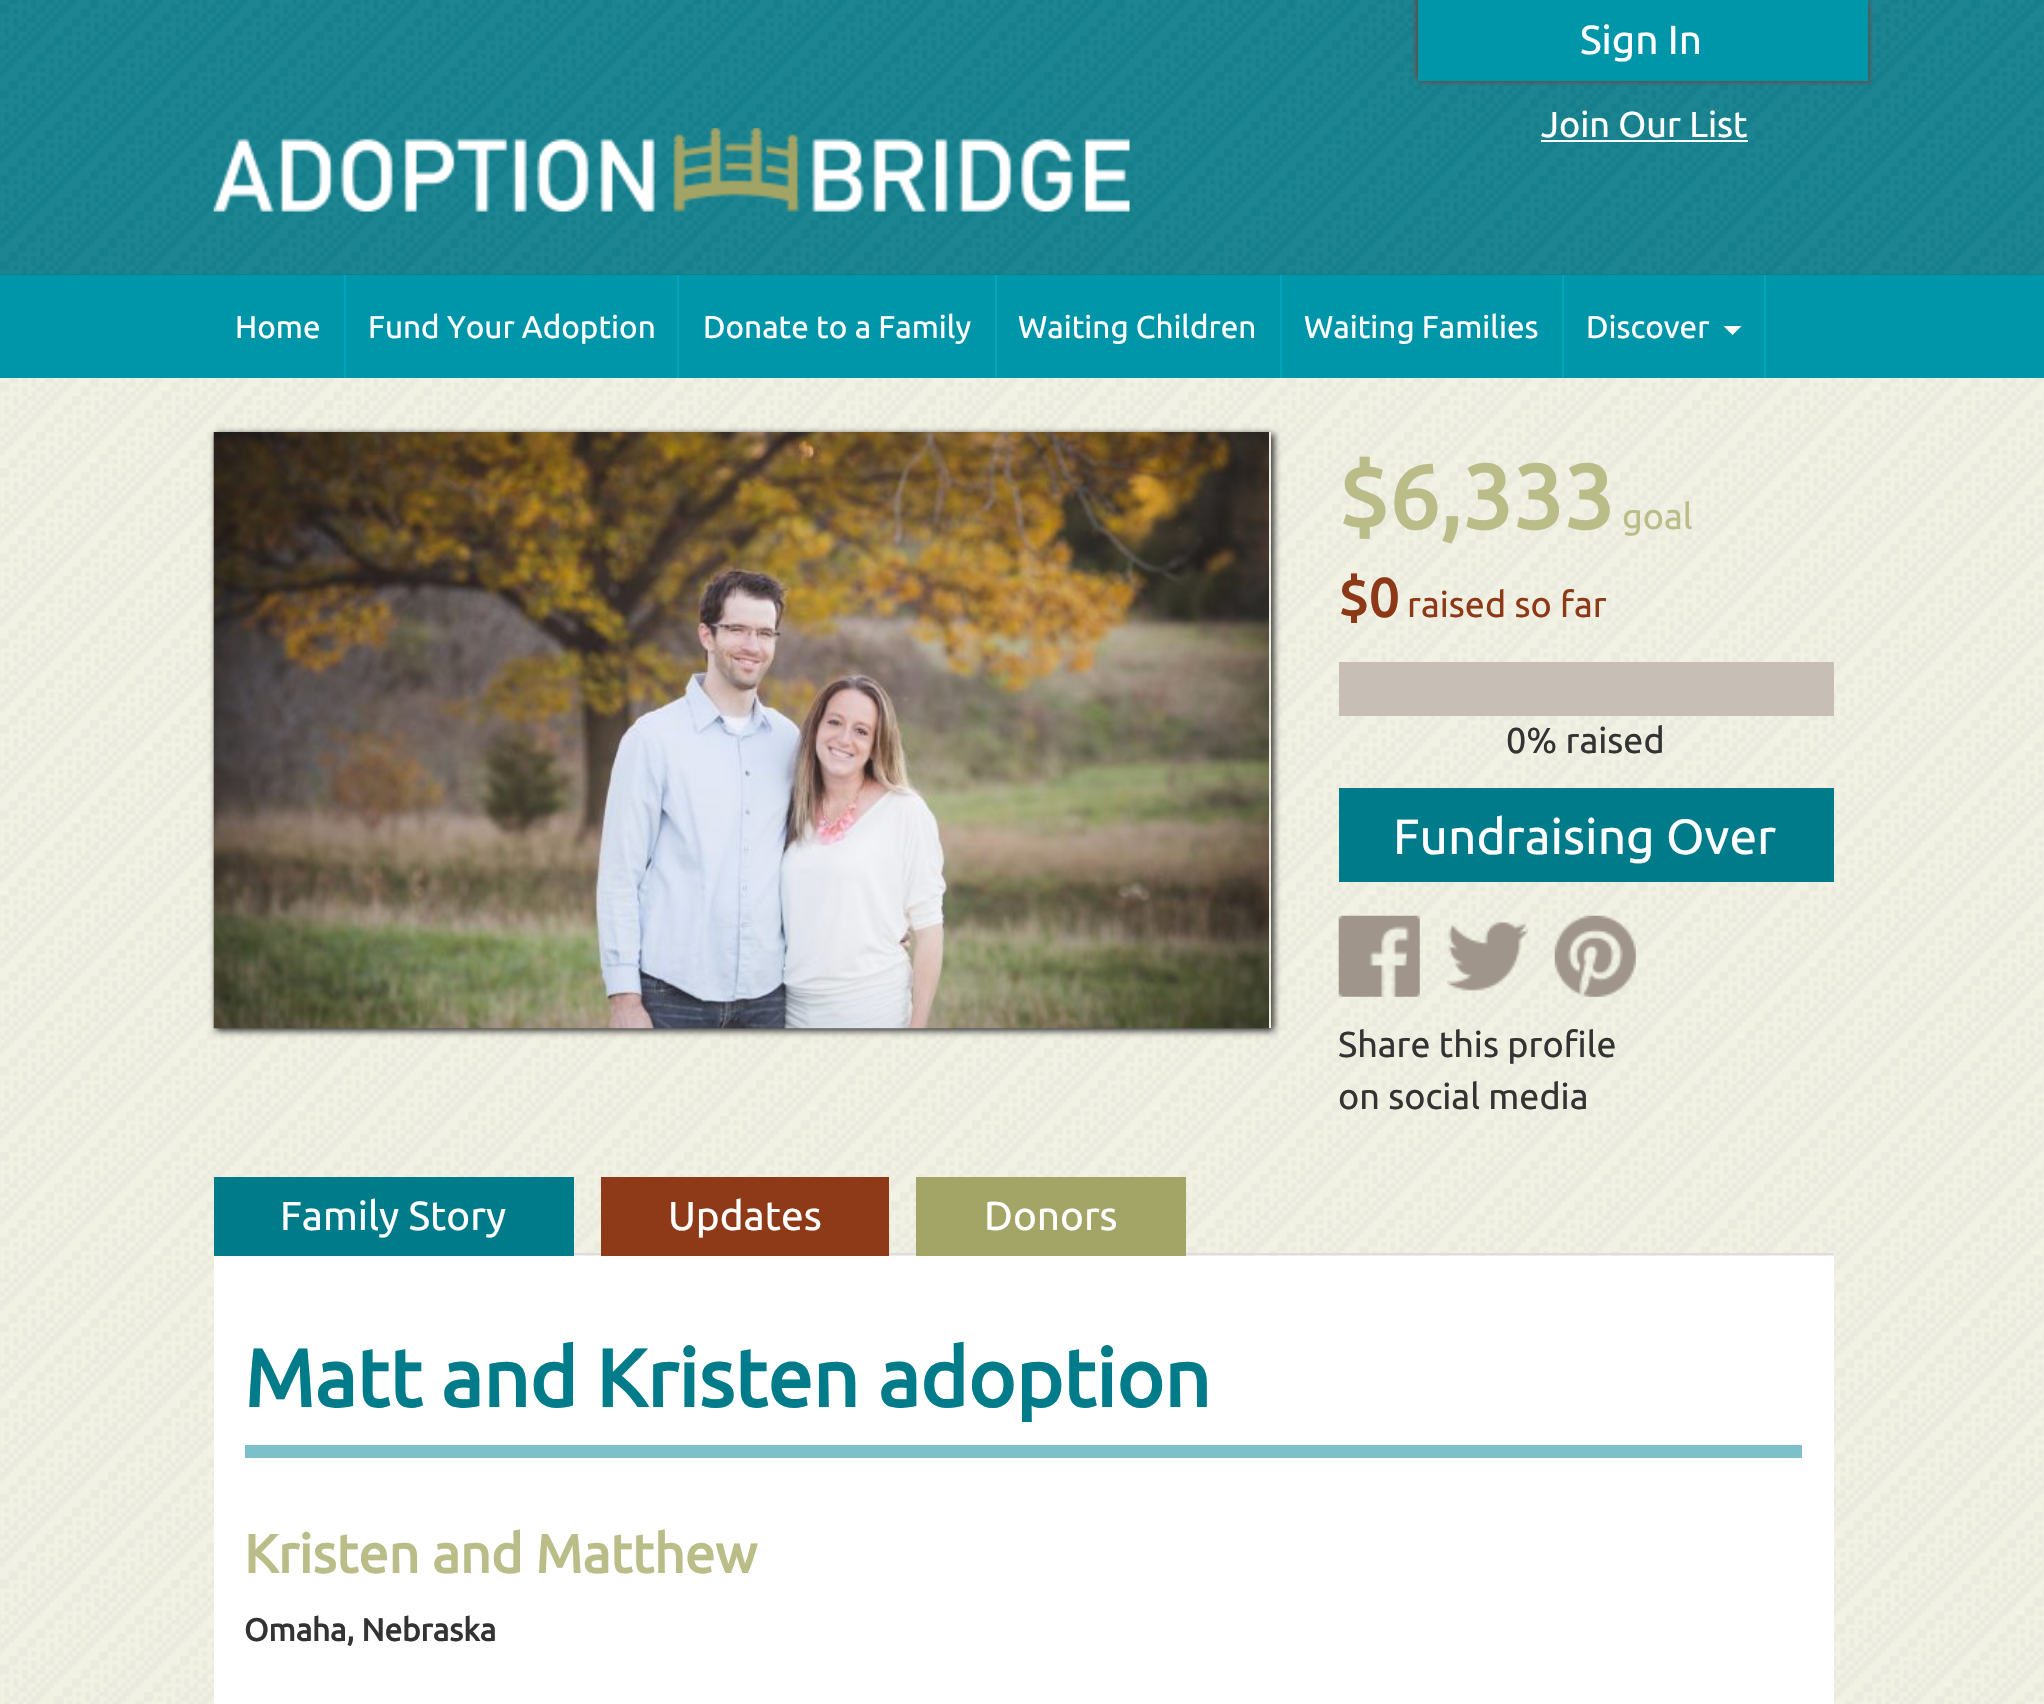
static SkFont makeFont(const char* family, int weight, float size, bool italic = false) {
  SkFontStyle style(weight, SkFontStyle::kNormal_Width,
    italic ? SkFontStyle::kItalic_Slant : SkFontStyle::kUpright_Slant);
  SkFont result(fontMgr->matchFamilyStyle(family, style), size);
  result.setSubpixel(true);
  return result;
}

static void text(SkCanvas* c, const char* s, float x, float y, const SkFont& font, SkColor color) {
  SkPaint ink(SkColor4f::FromColor(color));
  ink.setAntiAlias(true);
  c->drawString(s, x, y, font, ink);
}

static void box(SkCanvas* c, float l, float t, float r, float b, SkColor color) {
  SkPaint ink(SkColor4f::FromColor(color));
  ink.setAntiAlias(true);
  c->drawRect(SkRect::MakeLTRB(l, t, r, b), ink);
}

static void picture(SkCanvas* c, const char* path, float l, float t, float r, float b) {
  auto image = SkImages::DeferredFromEncodedData(SkData::MakeFromFileName(path));
  c->drawImageRect(image, SkRect::MakeLTRB(l, t, r, b), SkSamplingOptions());
}

void draw(SkCanvas* c) {
  SkPaint paint;
  paint.setAntiAlias(true);
  c->clear(0xffffffff);
  box(c, 0, 274, 2044, 275, 0xff007b8a);
  picture(c, "img_01.png", 0, 0, 2044, 275);
  paint.setColor(0xff555555);
  paint.setMaskFilter(SkMaskFilter::MakeBlur(kNormal_SkBlurStyle, 2));
  c->drawRect(SkRect::MakeLTRB(1415, -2, 1865, 79), paint);
  paint.setMaskFilter(nullptr);
  paint.setMaskFilter(SkMaskFilter::MakeBlur(kNormal_SkBlurStyle, 2));
  c->drawRect(SkRect::MakeLTRB(1420, 2, 1870, 83), paint);
  paint.setMaskFilter(nullptr);
  box(c, 1418, 0, 1868, 81, 0xff0096a9);
  SkFont face1 = makeFont("Ubuntu", 400, 40.5f);
  text(c, "Sign In", 1580, 54, face1, 0xffffffff);
  SkFont face2 = makeFont("Ubuntu", 400, 36);
  text(c, "Join Our List", 1541, 137, face2, 0xffffffff);
  box(c, 1541, 140, 1748, 142, 0xffffffff);
  picture(c, "img_02.png", 213, 128, 1130, 212);
  box(c, 0, 275, 2044, 378, 0xff0096a9);
  box(c, 344, 275, 346, 378, 0xff01a4ba);
  SkFont face3 = makeFont("Ubuntu", 400, 31.5f);
  text(c, "Home", 235, 338, face3, 0xffffffff);
  box(c, 677, 275, 679, 378, 0xff01a4ba);
  text(c, "Fund Your Adoption", 368, 338, face3, 0xffffffff);
  box(c, 995, 275, 997, 378, 0xff01a4ba);
  text(c, "Donate to a Family", 703, 338, face3, 0xffffffff);
  box(c, 1280, 275, 1282, 378, 0xff01a4ba);
  text(c, "Waiting Children", 1018, 338, face3, 0xffffffff);
  box(c, 1562, 275, 1564, 378, 0xff01a4ba);
  text(c, "Waiting Families", 1304, 338, face3, 0xffffffff);
  box(c, 1764, 275, 1766, 378, 0xff01a4ba);
  text(c, "Discover", 1586, 338, face3, 0xffffffff);
  paint.setColor(0xffffffff);
  c->drawPath(SkPathBuilder().moveTo(1723.5f, 326).lineTo(1741.5f, 326).lineTo(1732.5f, 335).close().detach(), paint);
  picture(c, "img_03.png", 0, 378, 2044, 1704);
  c->save();
  c->clipPath(SkPathBuilder(SkPathFillType::kEvenOdd).moveTo(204, 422).lineTo(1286, 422).lineTo(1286, 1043).lineTo(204, 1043).close().moveTo(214, 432).lineTo(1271, 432).lineTo(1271, 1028).lineTo(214, 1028).close().detach(), true);
  paint.setColor(0xff333333);
  paint.setMaskFilter(SkMaskFilter::MakeBlur(kNormal_SkBlurStyle, 3.5f));
  c->drawRect(SkRect::MakeLTRB(216, 434, 1274, 1031), paint);
  paint.setMaskFilter(nullptr);
  c->restore();
  picture(c, "img_04.png", 213, 432, 1269, 1029);
  SkFont face4 = makeFont("Ubuntu", 700, 90);
  text(c, "$6,333", 1338, 529, face4, 0xffbabd88);
  text(c, "goal", 1622, 529, face2, 0xffbabd88);
  SkFont face5 = makeFont("Ubuntu", 700, 54);
  text(c, "$0", 1338, 617, face5, 0xff8d3918);
  text(c, "raised so far", 1407, 617, face2, 0xff8d3918);
  box(c, 1339, 662, 1834, 716, 0xffc7beb5);
  text(c, "0% raised", 1506, 753, face2, 0xff333333);
  box(c, 1339, 788, 1834, 882, 0xff007b8a);
  SkFont face6 = makeFont("Ubuntu", 400, 49.5f);
  text(c, "Fundraising Over", 1393, 854, face6, 0xffffffff);
  picture(c, "img_05.png", 1338, 915, 1420, 997);
  picture(c, "img_06.png", 1446, 922, 1528, 991);
  picture(c, "img_07.png", 1554, 915, 1636, 997);
  text(c, "Share this profile", 1338, 1057, face2, 0xff333333);
  text(c, "on social media", 1338, 1109, face2, 0xff333333);
  box(c, 574, 1253, 1834, 1255, 0xffdddddd);
  box(c, 214, 1177, 574, 1256, 0xff007b8a);
  text(c, "Family Story", 280, 1230, face1, 0xffffffff);
  box(c, 601, 1177, 889, 1256, 0xff8e3a18);
  text(c, "Updates", 668, 1230, face1, 0xffffffff);
  box(c, 916, 1177, 1186, 1256, 0xffa3a566);
  text(c, "Donors", 984, 1230, face1, 0xffffffff);
  box(c, 214, 1256, 1834, 1704, 0xffffffff);
  box(c, 245, 1445, 1802, 1458, 0xff7dc0c9);
  SkFont face7 = makeFont("Ubuntu", 700, 81);
  text(c, "Matt and Kristen adoption", 244, 1407, face7, 0xff007b8a);
  text(c, "Kristen and Matthew", 244, 1573, face5, 0xffbabd88);
  SkFont face8 = makeFont("Ubuntu", 700, 31.5f);
  text(c, "Omaha, Nebraska", 244, 1641, face8, 0xff333333);
}
